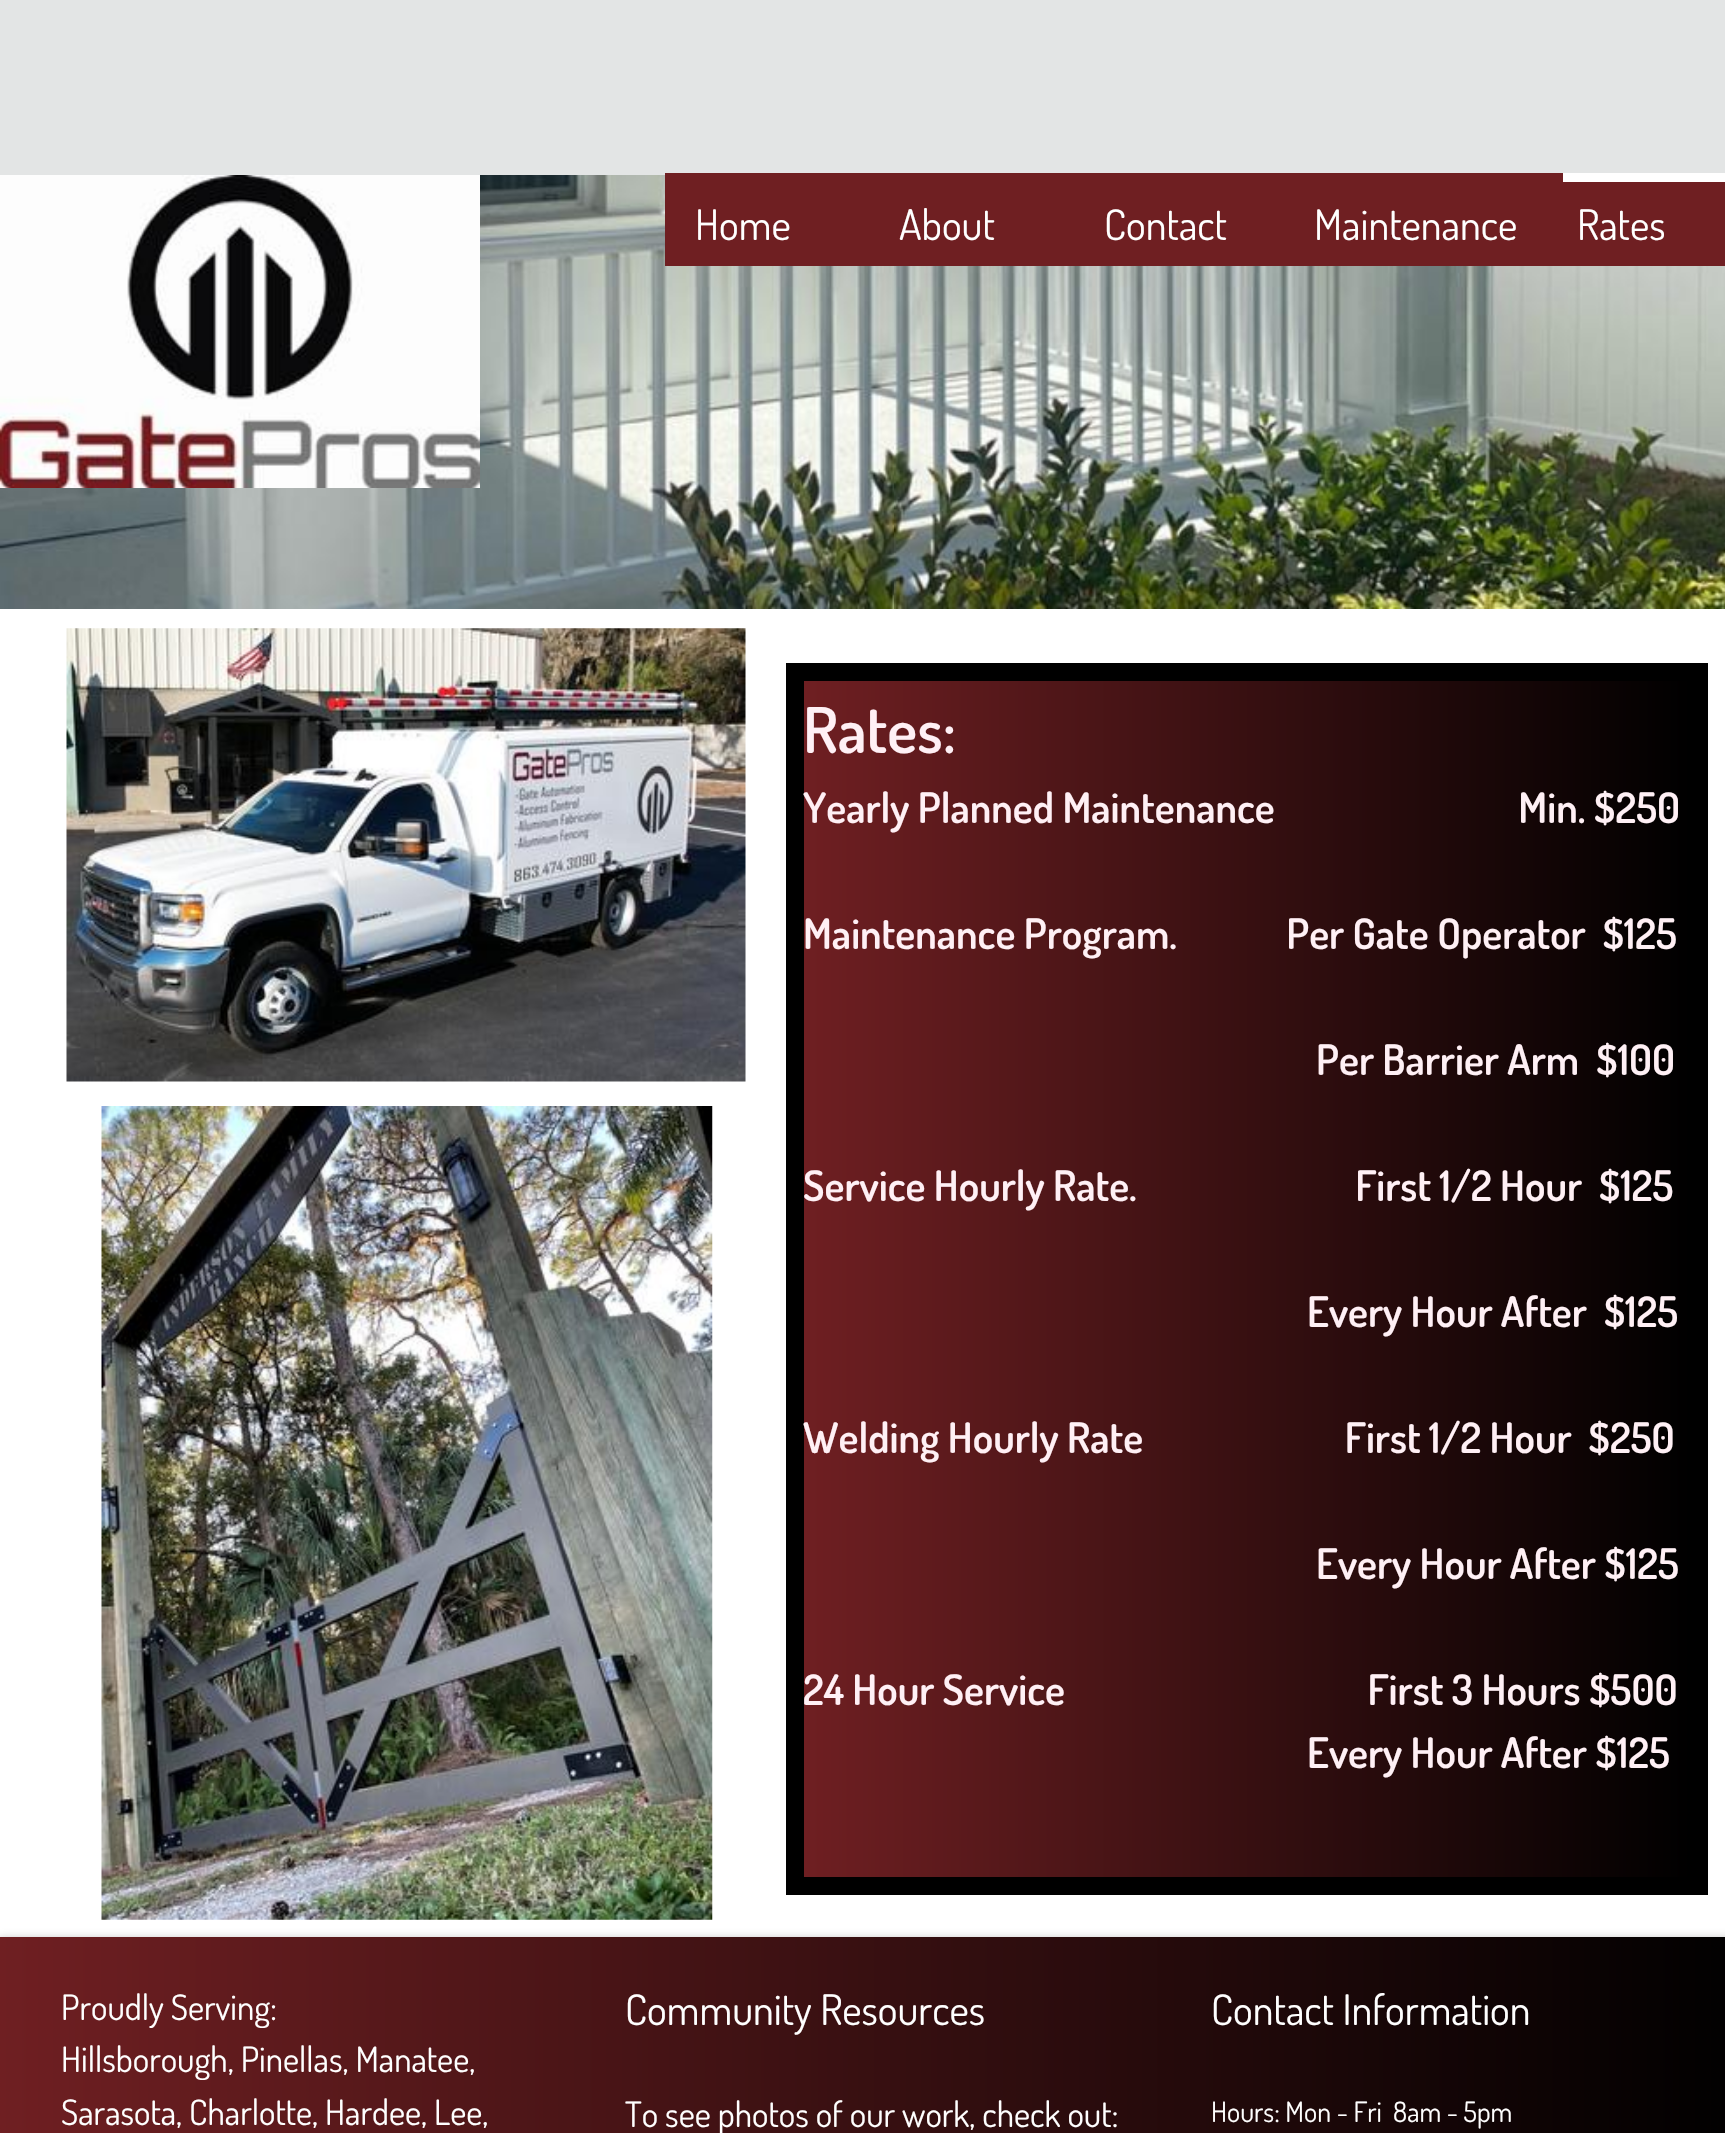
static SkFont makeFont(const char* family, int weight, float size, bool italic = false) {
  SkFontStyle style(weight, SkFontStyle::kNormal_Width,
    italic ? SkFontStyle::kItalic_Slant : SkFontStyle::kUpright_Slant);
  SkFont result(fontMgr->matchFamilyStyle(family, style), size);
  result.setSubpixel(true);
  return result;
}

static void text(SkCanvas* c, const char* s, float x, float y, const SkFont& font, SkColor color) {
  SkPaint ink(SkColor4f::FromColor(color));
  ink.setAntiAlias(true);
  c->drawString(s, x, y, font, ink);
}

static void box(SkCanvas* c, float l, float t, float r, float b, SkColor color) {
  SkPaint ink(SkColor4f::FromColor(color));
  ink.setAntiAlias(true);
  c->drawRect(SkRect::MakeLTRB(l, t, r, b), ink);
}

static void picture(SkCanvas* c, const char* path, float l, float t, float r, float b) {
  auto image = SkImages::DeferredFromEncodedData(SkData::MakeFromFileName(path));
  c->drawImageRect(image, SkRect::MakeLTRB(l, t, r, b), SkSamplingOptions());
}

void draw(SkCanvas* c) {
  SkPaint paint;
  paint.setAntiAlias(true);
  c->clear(0xffe3e5e5);
  box(c, 0, 609, 1725, 1937, 0xffffffff);
  picture(c, "img_01.png", 0, 175, 1725, 609);
  picture(c, "img_02.png", 0, 175, 480, 488);
  box(c, 665, 173, 1725, 266, 0xff6f1f22);
  SkFont face1 = makeFont("Dosis", 400, 42);
  text(c, "Home", 695, 240, face1, 0xffffffff);
  text(c, "About", 899, 240, face1, 0xffffffff);
  text(c, "Contact", 1104, 240, face1, 0xffffffff);
  text(c, "Maintenance", 1314, 240, face1, 0xffffffff);
  box(c, 1563, 173, 1725, 182, 0xffffffff);
  text(c, "Rates", 1577, 240, face1, 0xffffffff);
  picture(c, "img_03.png", 66, 628, 746, 1082);
  {
    const SkColor colors[] = {0xff6f1f22, 0xff000000};
    const float stops[] = {0, 1};
    const SkPoint ends[] = {{803, 1279}, {1691, 1279}};
    paint.setShader(SkGradientShader::MakeLinear(ends, colors, stops, 2, SkTileMode::kClamp));
    paint.setAlpha(255);
  }
  c->drawRect(SkRect::MakeLTRB(804, 681, 1690, 1877), paint);
  paint.setStyle(SkPaint::kStroke_Style);
  paint.setStrokeWidth(18);
  paint.setShader(nullptr);
  paint.setColor(0xff000000);
  c->drawRect(SkRect::MakeLTRB(795, 672, 1699, 1886), paint);
  SkFont face2 = makeFont("Dosis", 600, 63);
  text(c, "Rates:", 803, 753, face2, 0xfffff0f5);
  SkFont face3 = makeFont("Dosis", 600, 42);
  text(c, "Yearly Planned Maintenance                             Min. $250", 803, 823, face3, 0xfffff0f5);
  text(c, "Maintenance Program.             Per Gate Operator  $125", 803, 949, face3, 0xfffff0f5);
  text(c, "Per Barrier Arm  $100", 1316, 1075, face3, 0xfffff0f5);
  text(c, "Service Hourly Rate.                          First 1/2 Hour  $125", 803, 1201, face3, 0xfffff0f5);
  text(c, "Every Hour After  $125", 1307, 1327, face3, 0xfffff0f5);
  text(c, "Welding Hourly Rate                        First 1/2 Hour  $250", 803, 1453, face3, 0xfffff0f5);
  text(c, "Every Hour After $125", 1316, 1579, face3, 0xfffff0f5);
  text(c, "24 Hour Service                                    First 3 Hours $500", 803, 1705, face3, 0xfffff0f5);
  text(c, "Every Hour After $125", 1307, 1768, face3, 0xfffff0f5);
  picture(c, "img_04.png", 101, 1106, 713, 1920);
  paint.setStyle(SkPaint::kFill_Style);
  paint.setColor(0xbf323232);
  paint.setMaskFilter(SkMaskFilter::MakeBlur(kNormal_SkBlurStyle, 6));
  c->drawRect(SkRect::MakeLTRB(-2, 1943, 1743, 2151), paint);
  paint.setMaskFilter(nullptr);
  {
    const SkColor colors[] = {0xff6f1f22, 0xff000000};
    const float stops[] = {0, 1};
    const SkPoint ends[] = {{-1.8f, 2125}, {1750, 2125}};
    paint.setShader(SkGradientShader::MakeLinear(ends, colors, stops, 2, SkTileMode::kClamp));
    paint.setAlpha(255);
  }
  c->drawRect(SkRect::MakeLTRB(0, 1937, 1725, 2133), paint);
  SkFont face4 = makeFont("Dosis", 400, 35);
  text(c, "Proudly Serving:", 61, 2020, face4, 0xffffffff);
  text(c, "Hillsborough, Pinellas, Manatee,", 61, 2072, face4, 0xffffffff);
  text(c, "Sarasota, Charlotte, Hardee, Lee,", 61, 2125, face4, 0xffffffff);
  text(c, "Community Resources", 625, 2025, face1, 0xffffffff);
  text(c, "Contact Information", 1211, 2025, face1, 0xffffffff);
  text(c, "To see photos of our work, check out:", 625, 2127, face4, 0xffffffff);
  SkFont face5 = makeFont("Dosis", 400, 28);
  text(c, "Hours: Mon - Fri  8am - 5pm", 1211, 2122, face5, 0xffffffff);
}
